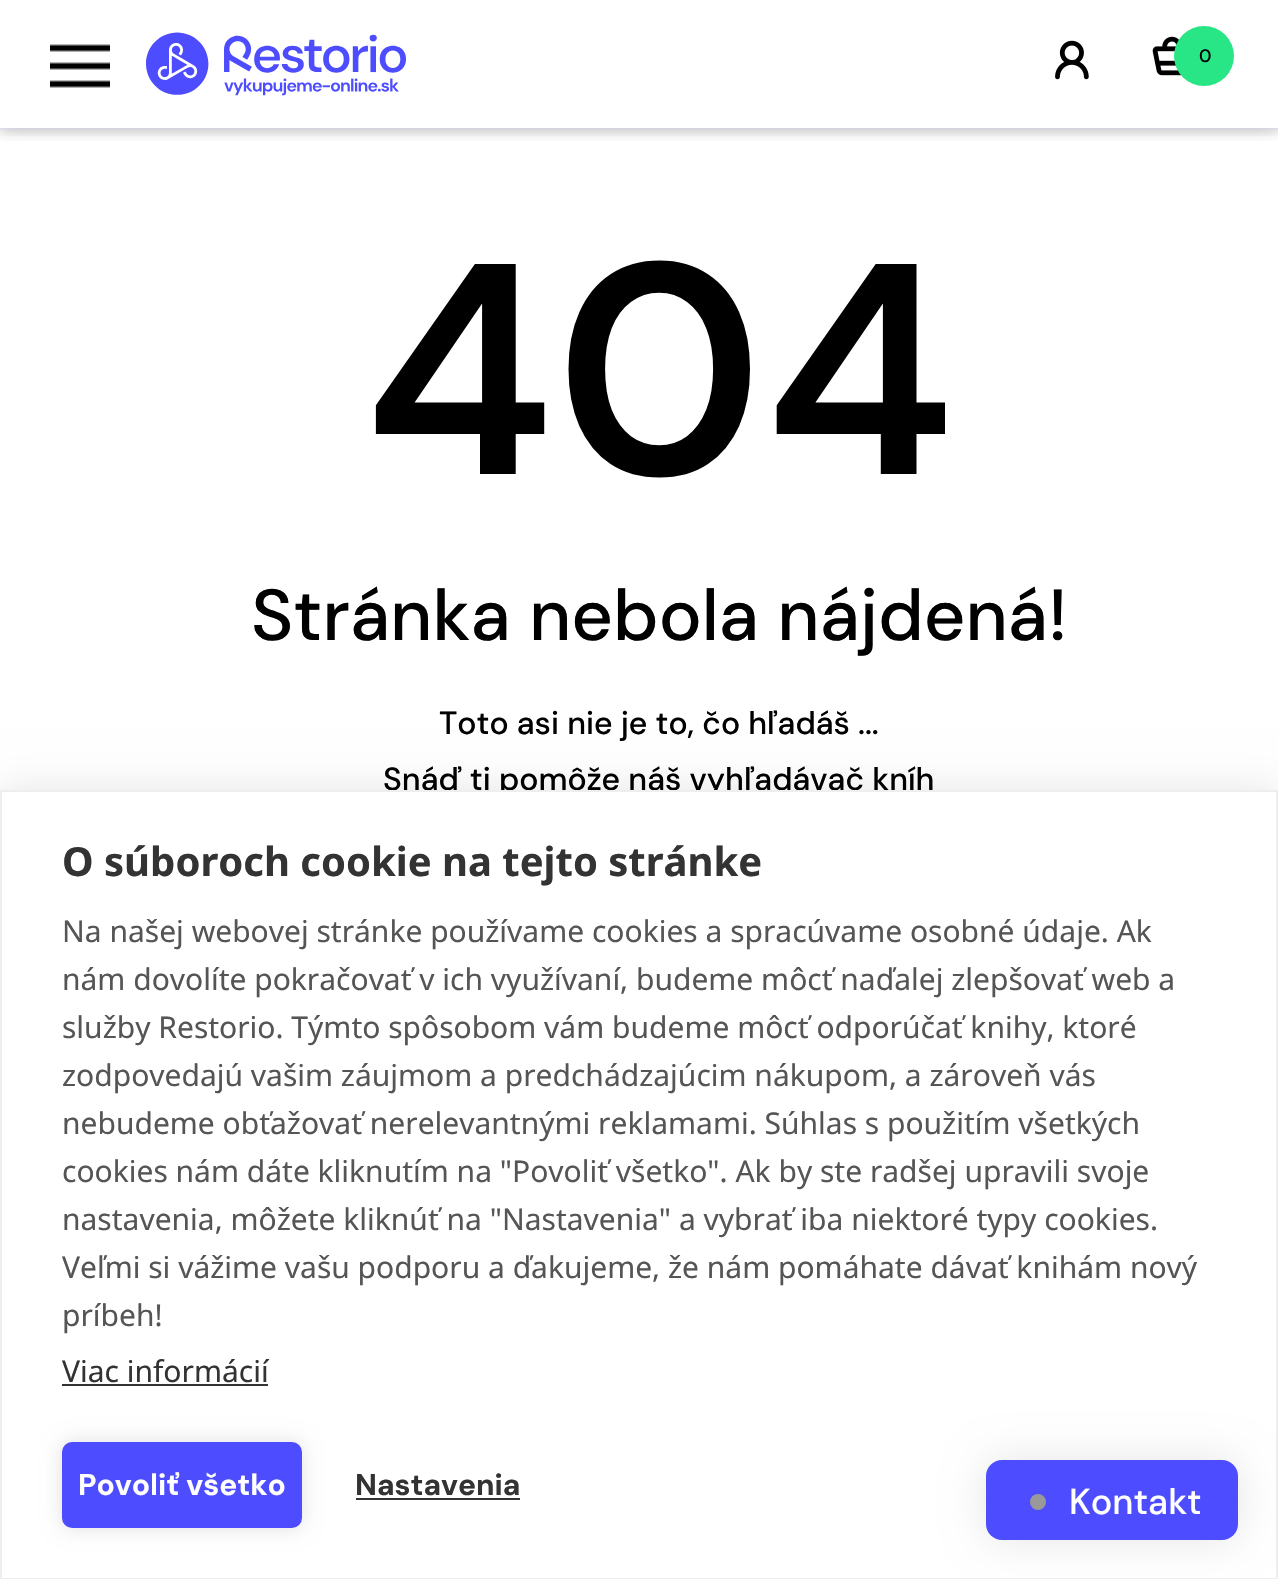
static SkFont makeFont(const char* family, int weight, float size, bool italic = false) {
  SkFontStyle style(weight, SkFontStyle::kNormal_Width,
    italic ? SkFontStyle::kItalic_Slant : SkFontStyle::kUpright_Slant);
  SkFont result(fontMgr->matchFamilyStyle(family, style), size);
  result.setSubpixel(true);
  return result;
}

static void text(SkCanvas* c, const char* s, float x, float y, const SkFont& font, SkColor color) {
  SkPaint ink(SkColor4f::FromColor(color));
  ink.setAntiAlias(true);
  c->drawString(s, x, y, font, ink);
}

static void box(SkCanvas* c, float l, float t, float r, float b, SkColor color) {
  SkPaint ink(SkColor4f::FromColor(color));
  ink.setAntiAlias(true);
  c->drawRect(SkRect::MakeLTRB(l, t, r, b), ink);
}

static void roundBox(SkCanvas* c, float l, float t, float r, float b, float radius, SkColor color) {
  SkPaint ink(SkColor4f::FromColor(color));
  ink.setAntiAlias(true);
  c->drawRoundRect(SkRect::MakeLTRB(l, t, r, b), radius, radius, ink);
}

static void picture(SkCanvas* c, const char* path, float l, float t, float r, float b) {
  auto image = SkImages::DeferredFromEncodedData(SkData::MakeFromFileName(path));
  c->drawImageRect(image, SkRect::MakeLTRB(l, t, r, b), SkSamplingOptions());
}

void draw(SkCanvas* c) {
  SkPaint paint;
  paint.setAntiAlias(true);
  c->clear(0xffffffff);
  c->save();
  c->clipRect(SkRect::MakeLTRB(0, 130, 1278, 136));
  paint.setColor(0x1a000000);
  paint.setMaskFilter(SkMaskFilter::MakeBlur(kNormal_SkBlurStyle, 5));
  c->drawRect(SkRect::MakeLTRB(0, 2, 1278, 132), paint);
  paint.setMaskFilter(nullptr);
  c->restore();
  box(c, 0, 128, 1278, 130, 0xffebebf7);
  c->save();
  c->clipRect(SkRect::MakeLTRB(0, 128, 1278, 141));
  paint.setColor(0x33000000);
  paint.setMaskFilter(SkMaskFilter::MakeBlur(kNormal_SkBlurStyle, 10));
  c->drawRect(SkRect::MakeLTRB(0, 0, 1278, 128), paint);
  paint.setMaskFilter(nullptr);
  c->restore();
  picture(c, "img_01.png", 50, 44, 110, 88);
  picture(c, "img_02.png", 146, 32, 406, 96);
  picture(c, "img_03.png", 1055, 40, 1089, 80);
  picture(c, "img_04.png", 1152, 36, 1182, 76);
  paint.setColor(0xff28e586);
  c->drawCircle(1204, 56, 30, paint);
  SkFont face1 = makeFont("DM Sans", 500, 18);
  text(c, "0", 1199, 62, face1, 0xff000000);
  SkFont face2 = makeFont("DM Sans", 600, 300);
  text(c, "404", 363, 474, face2, 0xff000000);
  SkFont face3 = makeFont("DM Sans", 500, 72);
  text(c, "Stránka nebola nájdená!", 251, 640, face3, 0xff000000);
  SkFont face4 = makeFont("DM Sans", 500, 32);
  text(c, "Toto asi nie je to, čo hľadáš ...", 439, 734, face4, 0xff000000);
  text(c, "Snáď ti pomôže náš vyhľadávač kníh", 383, 790, face4, 0xff000000);
  paint.setColor(0x1a000000);
  paint.setMaskFilter(SkMaskFilter::MakeBlur(kNormal_SkBlurStyle, 20));
  c->drawRect(SkRect::MakeLTRB(0, 790, 1278, 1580), paint);
  paint.setMaskFilter(nullptr);
  paint.setColor(0xffffffff);
  c->drawRect(SkRect::MakeLTRB(1, 791, 1277, 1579), paint);
  paint.setStyle(SkPaint::kStroke_Style);
  paint.setStrokeWidth(2);
  paint.setColor(0xffeeeeee);
  c->drawRect(SkRect::MakeLTRB(1, 791, 1277, 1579), paint);
  SkFont face5 = makeFont("Noto Sans", 700, 40);
  text(c, "O súboroch cookie na tejto stránke", 62, 876, face5, 0xff333333);
  SkFont face6 = makeFont("Noto Sans", 400, 30);
  text(c, "Na našej webovej stránke používame cookies a spracúvame osobné údaje. Ak", 62, 942, face6, 0xff555555);
  text(c, "nám dovolíte pokračovať v ich využívaní, budeme môcť naďalej zlepšovať web a", 62, 990, face6, 0xff555555);
  text(c, "služby Restorio. Týmto spôsobom vám budeme môcť odporúčať knihy, ktoré", 62, 1038, face6, 0xff555555);
  text(c, "zodpovedajú vašim záujmom a predchádzajúcim nákupom, a zároveň vás", 62, 1086, face6, 0xff555555);
  text(c, "nebudeme obťažovať nerelevantnými reklamami. Súhlas s použitím všetkých", 62, 1134, face6, 0xff555555);
  text(c, "cookies nám dáte kliknutím na \"Povoliť všetko\". Ak by ste radšej upravili svoje", 62, 1182, face6, 0xff555555);
  text(c, "nastavenia, môžete kliknúť na \"Nastavenia\" a vybrať iba niektoré typy cookies.", 62, 1230, face6, 0xff555555);
  text(c, "Veľmi si vážime vašu podporu a ďakujeme, že nám pomáhate dávať knihám nový", 62, 1278, face6, 0xff555555);
  text(c, "príbeh!", 62, 1326, face6, 0xff555555);
  text(c, "Viac informácií", 62, 1382, face6, 0xff333333);
  box(c, 62, 1384, 268, 1386, 0xff333333);
  paint.setStyle(SkPaint::kFill_Style);
  paint.setColor(0x1f000000);
  paint.setMaskFilter(SkMaskFilter::MakeBlur(kNormal_SkBlurStyle, 10));
  c->drawRoundRect(SkRect::MakeLTRB(62, 1442, 302, 1528), 10, 10, paint);
  paint.setMaskFilter(nullptr);
  roundBox(c, 62, 1442, 302, 1528, 10, 0xff4d4cff);
  SkFont face7 = makeFont("DM Sans", 700, 30);
  text(c, "Povoliť všetko", 78, 1495, face7, 0xffffffff);
  text(c, "Nastavenia", 355, 1495, face7, 0xff333333);
  box(c, 356, 1498, 520, 1500, 0xff333333);
  paint.setColor(0x1a000000);
  paint.setMaskFilter(SkMaskFilter::MakeBlur(kNormal_SkBlurStyle, 20));
  c->drawRoundRect(SkRect::MakeLTRB(986, 1460, 1238, 1540), 16, 16, paint);
  paint.setMaskFilter(nullptr);
  roundBox(c, 986, 1460, 1238, 1540, 16, 0xff4d4cff);
  paint.setColor(0xff999999);
  c->drawCircle(1038, 1502, 12, paint);
  paint.setStyle(SkPaint::kStroke_Style);
  paint.setStrokeWidth(8);
  paint.setColor(0xff4d4cff);
  c->drawCircle(1038, 1502, 12, paint);
  SkFont face8 = makeFont("DM Sans", 500, 36);
  text(c, "Kontakt", 1069, 1514, face8, 0xffffffff);
}
